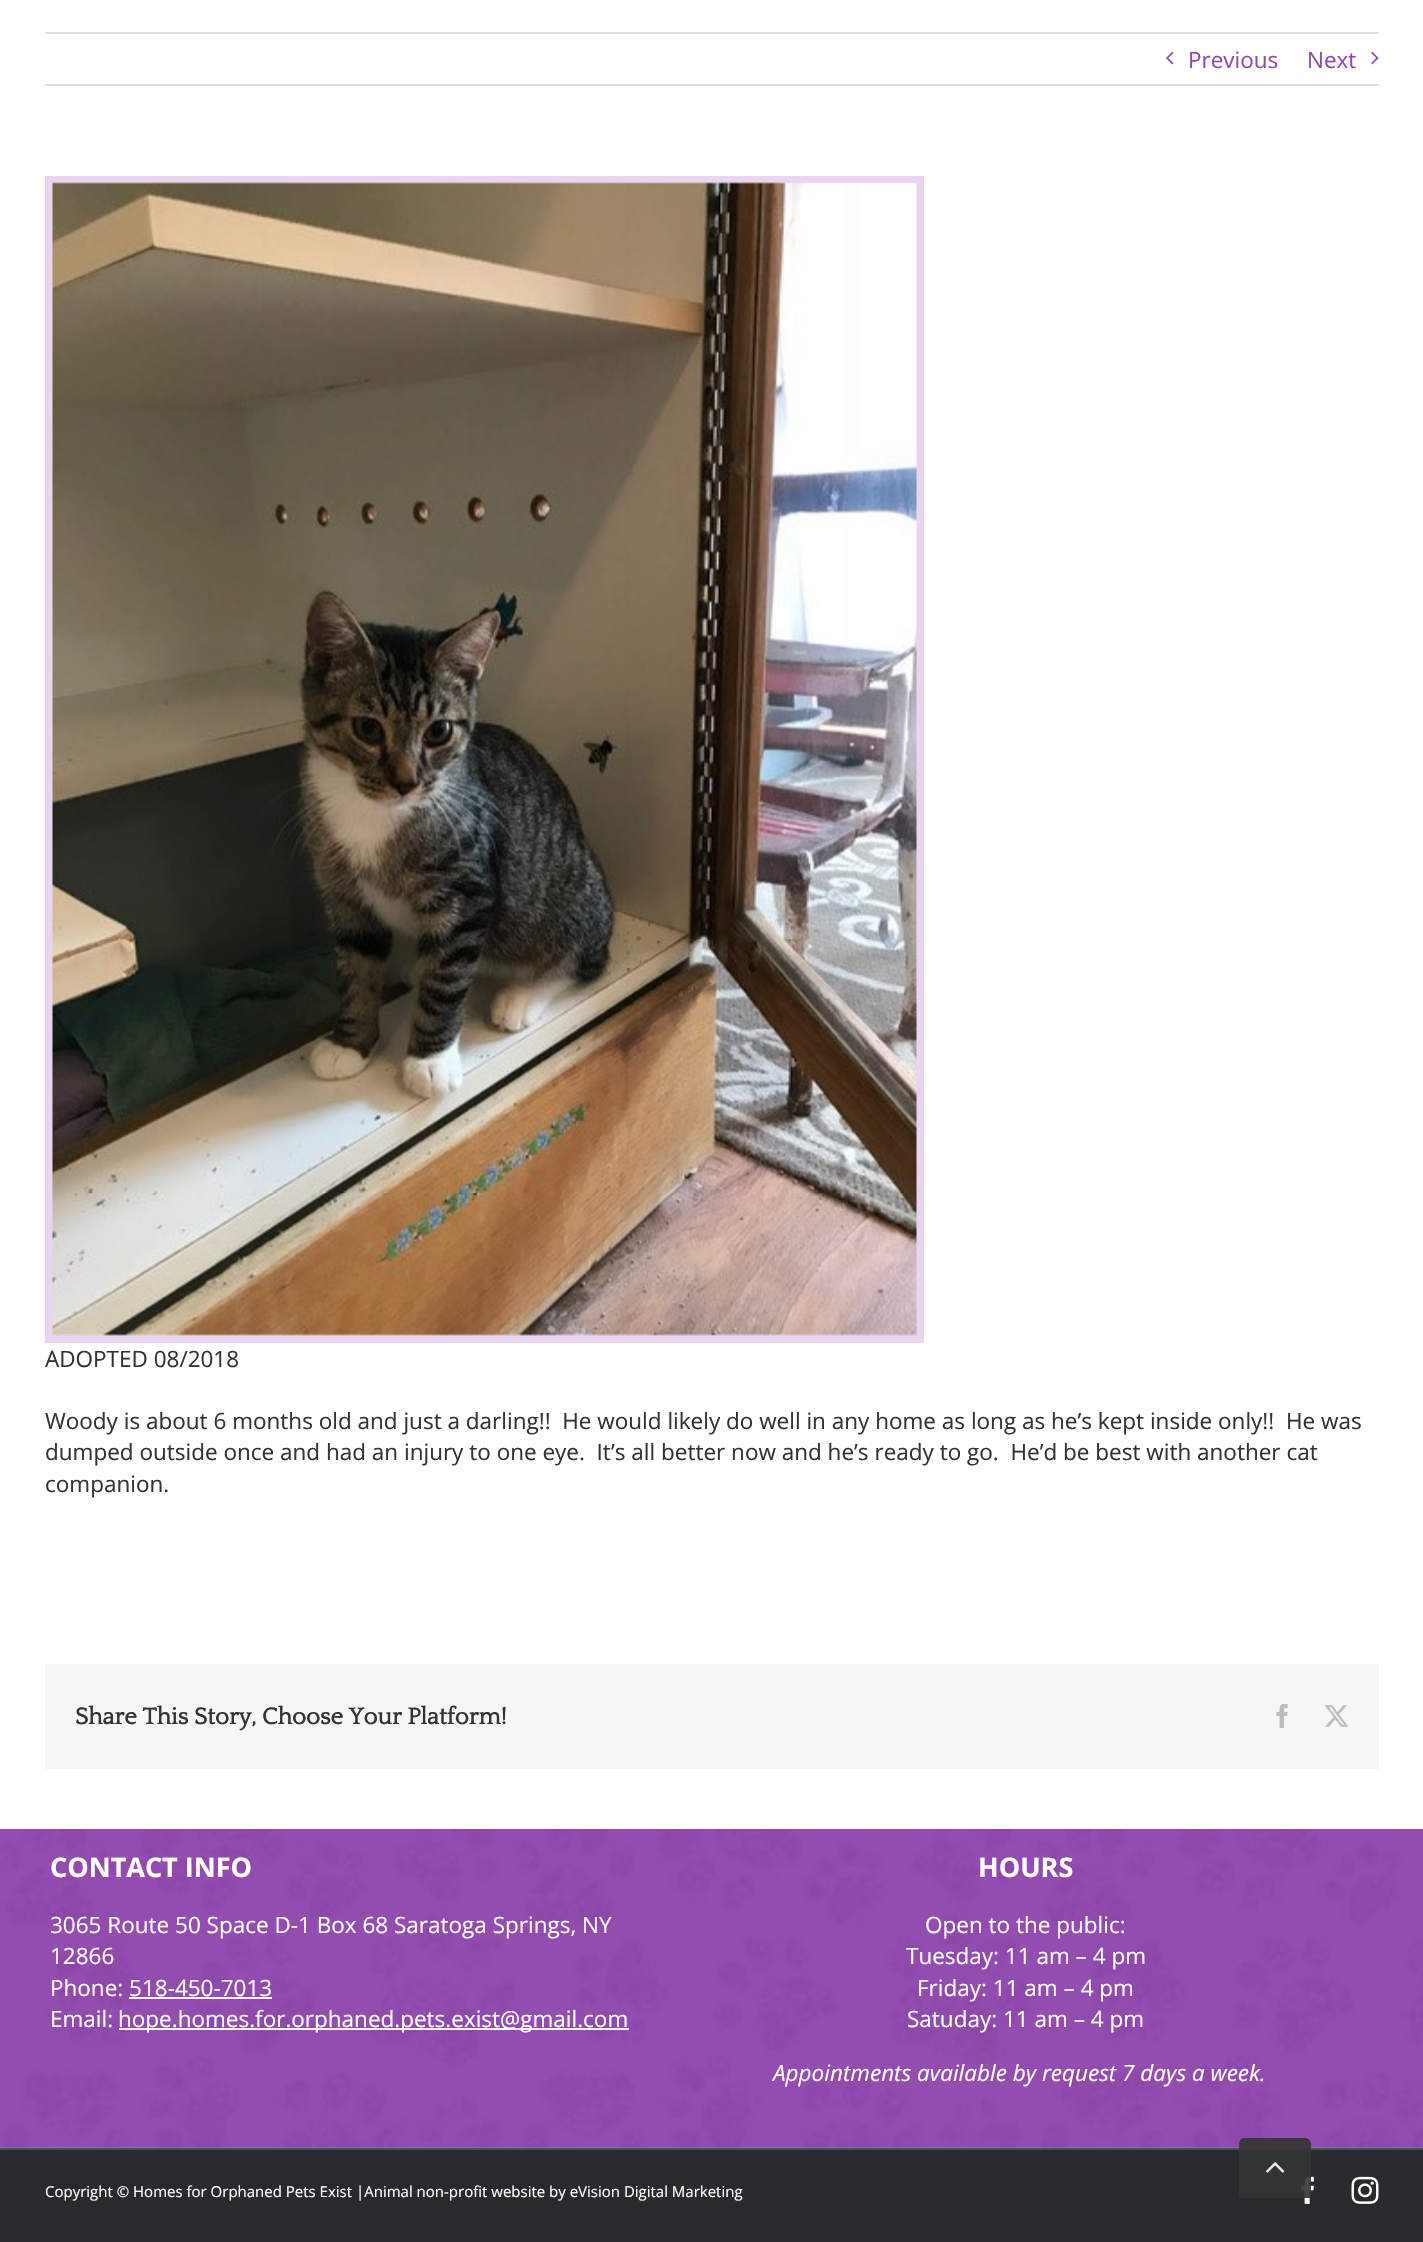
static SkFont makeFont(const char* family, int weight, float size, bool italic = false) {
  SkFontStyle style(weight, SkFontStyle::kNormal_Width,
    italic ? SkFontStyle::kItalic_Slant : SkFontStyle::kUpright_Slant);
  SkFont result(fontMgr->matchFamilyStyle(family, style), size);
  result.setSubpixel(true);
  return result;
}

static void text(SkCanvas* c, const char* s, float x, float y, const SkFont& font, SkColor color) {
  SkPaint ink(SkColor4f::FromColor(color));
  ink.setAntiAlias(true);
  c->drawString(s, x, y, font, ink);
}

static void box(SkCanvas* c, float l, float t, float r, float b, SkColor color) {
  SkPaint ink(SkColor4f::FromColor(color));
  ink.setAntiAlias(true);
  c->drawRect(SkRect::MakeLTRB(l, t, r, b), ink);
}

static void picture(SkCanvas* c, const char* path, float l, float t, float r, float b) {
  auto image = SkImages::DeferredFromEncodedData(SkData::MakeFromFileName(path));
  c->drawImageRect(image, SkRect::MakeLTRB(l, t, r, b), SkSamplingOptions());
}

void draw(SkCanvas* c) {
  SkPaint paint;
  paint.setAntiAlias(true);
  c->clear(0xffffffff);
  box(c, 45, 32, 1379, 34, 0xffe0dede);
  box(c, 45, 84, 1379, 86, 0xffe0dede);
  picture(c, "img_01.png", 1166, 51, 1174, 65);
  SkFont face1 = makeFont("Open Sans", 400, 22.5f);
  text(c, "Previous", 1188, 68, face1, 0xff8f4aac);
  text(c, "Next", 1307, 68, face1, 0xff8f4aac);
  picture(c, "img_02.png", 1371, 51, 1379, 65);
  paint.setStyle(SkPaint::kStroke_Style);
  paint.setStrokeWidth(8);
  paint.setColor(0xffe9d5ef);
  c->drawRect(SkRect::MakeLTRB(49, 180, 920, 1339), paint);
  picture(c, "img_03.png", 52, 182, 917, 1336);
  text(c, "ADOPTED 08/2018", 45, 1367, face1, 0xff333333);
  text(c, "Woody is about 6 months old and just a darling!!  He would likely do well in any home as long as he’s kept inside only!!  He was", 45, 1429, face1, 0xff333333);
  text(c, "dumped outside once and had an injury to one eye.  It’s all better now and he’s ready to go.  He’d be best with another cat", 45, 1460, face1, 0xff333333);
  text(c, "companion.", 45, 1492, face1, 0xff333333);
  box(c, 45, 1664, 1379, 1769, 0xfff6f6f6);
  SkFont face2 = makeFont("Quattrocento", 700, 24);
  text(c, "Share This Story, Choose Your Platform!", 75, 1724, face2, 0xff333333);
  picture(c, "img_04.png", 1276, 1704, 1288, 1728);
  picture(c, "img_05.png", 1324, 1705, 1349, 1727);
  picture(c, "img_06.png", 0, 1829, 1423, 2148);
  SkFont face3 = makeFont("Open Sans", 700, 27);
  text(c, "CONTACT INFO", 50, 1877, face3, 0xffffffff);
  text(c, "3065 Route 50 Space D-1 Box 68 Saratoga Springs, NY", 50, 1933, face1, 0xffffffff);
  text(c, "12866", 50, 1964, face1, 0xffffffff);
  text(c, "Phone: 518-450-7013", 50, 1996, face1, 0xffffffff);
  box(c, 129, 1997, 272, 1999, 0xffffffff);
  text(c, "Email:", 50, 2027, face1, 0xffffffff);
  box(c, 119, 2028, 629, 2030, 0xffffffff);
  text(c, "hope.homes.for.orphaned.pets.exist@gmail.com", 118, 2027, face1, 0xffffffff);
  text(c, "HOURS", 978, 1877, face3, 0xffffffff);
  text(c, "Open to the public:", 925, 1933, face1, 0xffffffff);
  text(c, "Tuesday: 11 am – 4 pm", 906, 1964, face1, 0xffffffff);
  text(c, "Friday: 11 am – 4 pm", 917, 1996, face1, 0xffffffff);
  text(c, "Satuday: 11 am – 4 pm", 907, 2027, face1, 0xffffffff);
  SkFont face4 = makeFont("Open Sans", 400, 22.5f, true);
  text(c, "Appointments available by request 7 days a week.", 773, 2081, face4, 0xffffffff);
  box(c, 0, 2150, 1423, 2242, 0xff282a2b);
  box(c, 0, 2148, 1423, 2150, 0xff4b4c4d);
  SkFont face5 = makeFont("Open Sans", 400, 15);
  text(c, "Copyright © Homes for Orphaned Pets Exist |Animal non-profit website by eVision Digital Marketing", 45, 2197, face5, 0xffffffff);
  picture(c, "img_07.png", 1301, 2176, 1314, 2204);
  picture(c, "img_08.png", 1351, 2176, 1379, 2204);
  paint.setStyle(SkPaint::kFill_Style);
  paint.setColor(0xe6333333);
  c->drawPath(SkPathBuilder().moveTo(1245, 2138).lineTo(1305, 2138).cubicTo(1308.5f, 2138, 1311, 2140.5f, 1311, 2144).lineTo(1311, 2198).lineTo(1239, 2198).lineTo(1239, 2144).cubicTo(1239, 2140.5f, 1241.5f, 2138, 1245, 2138).close().detach(), paint);
  picture(c, "img_09.png", 1266, 2162, 1285, 2173);
}
